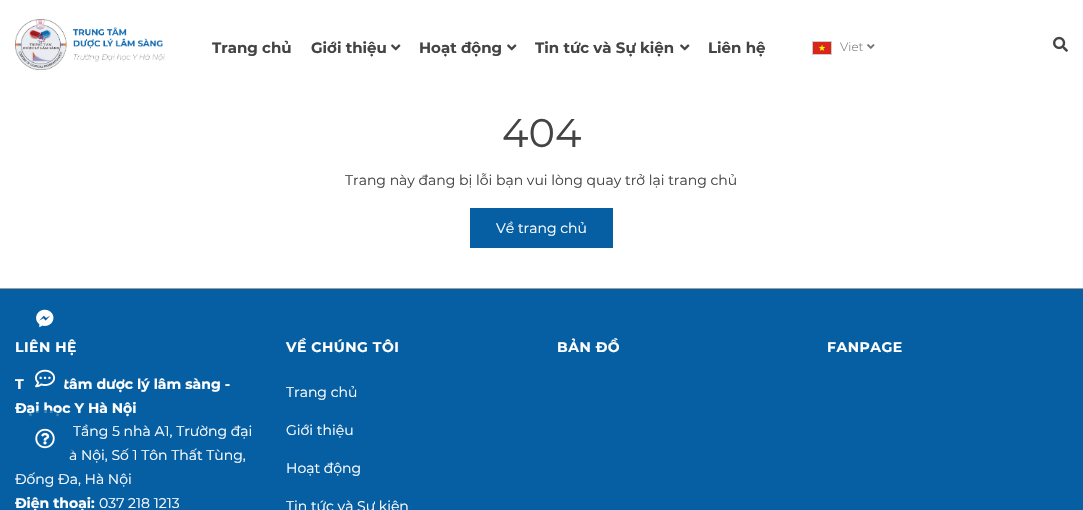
static SkFont makeFont(const char* family, int weight, float size, bool italic = false) {
  SkFontStyle style(weight, SkFontStyle::kNormal_Width,
    italic ? SkFontStyle::kItalic_Slant : SkFontStyle::kUpright_Slant);
  SkFont result(fontMgr->matchFamilyStyle(family, style), size);
  result.setSubpixel(true);
  return result;
}

static void text(SkCanvas* c, const char* s, float x, float y, const SkFont& font, SkColor color) {
  SkPaint ink(SkColor4f::FromColor(color));
  ink.setAntiAlias(true);
  c->drawString(s, x, y, font, ink);
}

static void spacedText(SkCanvas* c, const char* s, float x, float y, const SkFont& font, const SkPaint& ink, float letter, float word) {
  std::vector<SkGlyphID> glyphs(font.countText(s, strlen(s), SkTextEncoding::kUTF8));
  std::vector<float> xs(glyphs.size());
  font.textToGlyphs(s, strlen(s), SkTextEncoding::kUTF8, glyphs);
  font.getXPos(glyphs, xs, x);
  float extra = 0;
  for (size_t i = 0; i < glyphs.size(); i++) {
    xs[i] += extra;
    extra += letter + word * (glyphs[i] == font.unicharToGlyph(' '));
  }
  c->drawTextBlob(SkTextBlob::MakeFromPosHGlyphs(glyphs, xs, y, font), 0, 0, ink);
}

static void box(SkCanvas* c, float l, float t, float r, float b, SkColor color) {
  SkPaint ink(SkColor4f::FromColor(color));
  ink.setAntiAlias(true);
  c->drawRect(SkRect::MakeLTRB(l, t, r, b), ink);
}

static void picture(SkCanvas* c, const char* path, float l, float t, float r, float b) {
  auto image = SkImages::DeferredFromEncodedData(SkData::MakeFromFileName(path));
  c->drawImageRect(image, SkRect::MakeLTRB(l, t, r, b), SkSamplingOptions());
}

void draw(SkCanvas* c) {
  SkPaint paint;
  paint.setAntiAlias(true);
  c->clear(0xffffffff);
  picture(c, "img_01.png", 15, 19, 165, 70);
  SkFont face1 = makeFont("Montserrat", 700, 15);
  text(c, "Trang chủ", 212, 53, face1, 0xff444444);
  text(c, "Giới thiệu", 311, 53, face1, 0xff444444);
  picture(c, "img_02.png", 391, 44, 401, 51);
  text(c, "Hoạt động", 419, 53, face1, 0xff444444);
  picture(c, "img_02.png", 507, 44, 517, 51);
  text(c, "Tin tức và Sự kiện", 535, 53, face1, 0xff444444);
  picture(c, "img_02.png", 680, 44, 690, 51);
  text(c, "Liên hệ", 708, 53, face1, 0xff444444);
  paint.setStyle(SkPaint::kStroke_Style);
  paint.setStrokeWidth(1);
  paint.setColor(0xffcccccc);
  c->drawRect(SkRect::MakeLTRB(812.5f, 41.5f, 831.5f, 54.5f), paint);
  picture(c, "img_03.png", 813, 42, 831, 54);
  SkFont face2 = makeFont("Montserrat", 300, 12);
  text(c, "Viet", 840, 51, face2, 0xff747474);
  picture(c, "img_04.png", 867, 44, 875, 49);
  picture(c, "img_05.png", 1053, 36, 1068, 52);
  SkFont face3 = makeFont("Montserrat", 400, 40);
  text(c, "404", 502, 147, face3, 0xff444444);
  SkFont face4 = makeFont("Montserrat", 400, 14);
  text(c, "Trang này đang bị lỗi bạn vui lòng quay trở lại trang chủ", 345, 185, face4, 0xff444444);
  box(c, 470, 208, 613, 248, 0xff065fa2);
  text(c, "Về trang chủ", 496, 233, face4, 0xffffffff);
  box(c, 0, 289, 1083, 510, 0xff065fa2);
  picture(c, "img_06.png", 36, 309, 54, 328);
  SkFont face5 = makeFont("Montserrat", 700, 14);
  text(c, "tâm dược lý lâm sàng -", 63, 389, face5, 0xffffffff);
  paint.setStyle(SkPaint::kFill_Style);
  paint.setColor(0xff065fa2);
  c->drawCircle(45, 380, 20, paint);
  picture(c, "img_07.png", 35, 369, 55, 388);
  text(c, "Đại học Y Hà Nội", 15, 413, face5, 0xffffffff);
  text(c, "Tầng 5 nhà A1, Trường đại", 73, 436, face4, 0xffffffff);
  text(c, "à Nội, Số 1 Tôn Thất Tùng,", 69, 460, face4, 0xffffffff);
  paint.setColor(0xbf065fa2);
  c->drawCircle(45, 440, 30, paint);
  picture(c, "img_08.png", 35, 428, 55, 449);
  box(c, 0, 288, 1083, 289, 0xff9e9e9e);
  paint.setColor(0xffffffff);
  spacedText(c, "LIÊN HỆ", 15, 352, face5, paint, 0.5f, 0);
  text(c, "T", 15, 389, face5, 0xffffffff);
  text(c, "Đống Đa, Hà Nội", 15, 484, face4, 0xffffffff);
  text(c, "Điện thoại:", 15, 508, face5, 0xffffffff);
  text(c, "037 218 1213", 99, 508, face4, 0xffffffff);
  spacedText(c, "VỀ CHÚNG TÔI", 286, 352, face5, paint, 0.5f, 0);
  text(c, "Trang chủ", 286, 397, face4, 0xffffffff);
  text(c, "Giới thiệu", 286, 435, face4, 0xffffffff);
  text(c, "Hoạt động", 286, 473, face4, 0xffffffff);
  text(c, "Tin tức và Sự kiện", 286, 511, face4, 0xffffffff);
  spacedText(c, "BẢN ĐỒ", 557, 352, face5, paint, 0.5f, 0);
  spacedText(c, "FANPAGE", 827, 352, face5, paint, 0.5f, 0);
}
